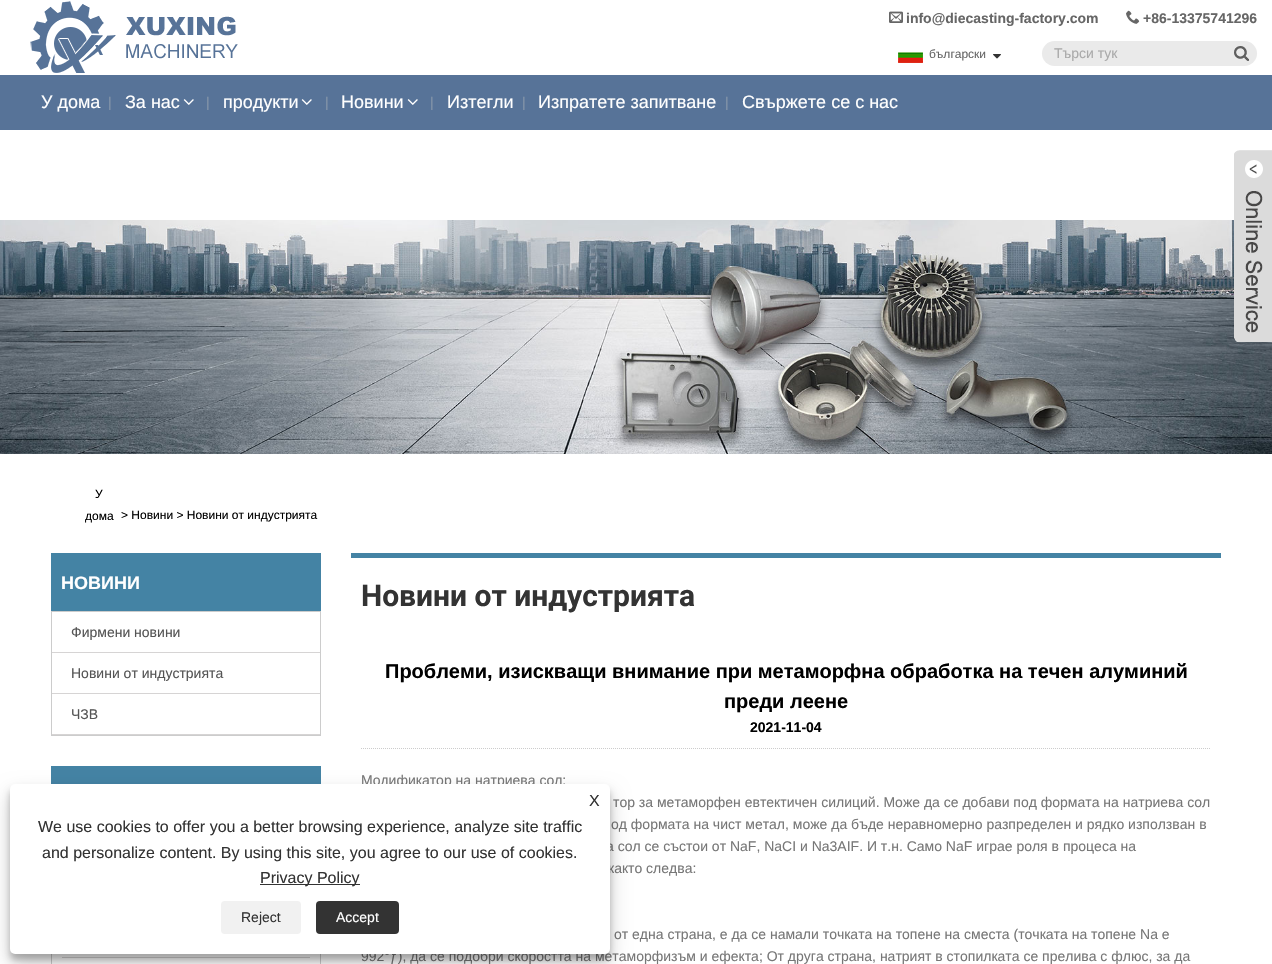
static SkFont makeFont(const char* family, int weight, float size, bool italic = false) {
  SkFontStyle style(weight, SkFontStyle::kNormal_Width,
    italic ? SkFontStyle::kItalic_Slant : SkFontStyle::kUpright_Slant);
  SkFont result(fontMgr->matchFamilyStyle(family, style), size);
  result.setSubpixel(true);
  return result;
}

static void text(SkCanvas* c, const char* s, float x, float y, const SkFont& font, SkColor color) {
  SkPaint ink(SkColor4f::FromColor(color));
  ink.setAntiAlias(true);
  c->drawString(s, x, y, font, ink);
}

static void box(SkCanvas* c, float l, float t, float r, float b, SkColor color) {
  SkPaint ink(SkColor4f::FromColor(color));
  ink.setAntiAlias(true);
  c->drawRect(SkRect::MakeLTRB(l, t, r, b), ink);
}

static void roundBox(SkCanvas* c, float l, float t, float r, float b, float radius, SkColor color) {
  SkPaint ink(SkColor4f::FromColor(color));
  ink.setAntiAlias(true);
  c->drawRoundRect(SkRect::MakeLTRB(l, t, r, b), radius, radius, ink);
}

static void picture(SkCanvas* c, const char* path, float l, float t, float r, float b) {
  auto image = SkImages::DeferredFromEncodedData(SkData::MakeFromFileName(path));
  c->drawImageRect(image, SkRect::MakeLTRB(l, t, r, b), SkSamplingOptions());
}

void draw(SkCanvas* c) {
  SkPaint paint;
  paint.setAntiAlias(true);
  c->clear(0xffffffff);
  picture(c, "img_01.png", 889, 11, 903, 23);
  SkFont face1 = makeFont("Liberation Sans", 700, 14);
  text(c, "info@diecasting-factory.com", 906, 23, face1, 0xff666666);
  picture(c, "img_02.png", 1126, 10, 1140, 24);
  text(c, "+86-13375741296", 1143, 23, face1, 0xff666666);
  picture(c, "img_03.png", 898, 52, 923, 63);
  SkFont face2 = makeFont("Liberation Sans", 400, 12);
  text(c, "български", 929, 58, face2, 0xff666666);
  picture(c, "img_04.png", 993, 54, 1001, 59);
  roundBox(c, 1042, 41, 1257, 66, 12.5f, 0xffeaeaea);
  SkFont face3 = makeFont("Liberation Sans", 400, 14);
  text(c, "Търси тук", 1054, 58, face3, 0xffaaaaaa);
  picture(c, "img_05.png", 1234, 46, 1249, 61);
  box(c, 0, 75, 8, 90, 0xff577398);
  picture(c, "img_06.png", 30, 1, 238, 73);
  paint.setColor(0xff577398);
  c->drawPath(SkPathBuilder().moveTo(8, 75).lineTo(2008, 75).lineTo(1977, 130).lineTo(-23, 130).close().detach(), paint);
  SkFont face4 = makeFont("Liberation Sans", 400, 18);
  text(c, "У дома", 41, 108, face4, 0xffffffff);
  text(c, "|", 108, 107, face3, 0xff8596aa);
  text(c, "За нас", 125, 108, face4, 0xffffffff);
  picture(c, "img_07.png", 183, 99, 194, 105);
  text(c, "|", 206, 107, face3, 0xff8596aa);
  text(c, "продукти", 223, 108, face4, 0xffffffff);
  picture(c, "img_07.png", 301, 99, 312, 105);
  text(c, "|", 325, 107, face3, 0xff8596aa);
  text(c, "Новини", 341, 108, face4, 0xffffffff);
  picture(c, "img_07.png", 407, 99, 418, 105);
  text(c, "|", 430, 107, face3, 0xff8596aa);
  text(c, "Изтегли", 447, 108, face4, 0xffffffff);
  text(c, "|", 522, 107, face3, 0xff8596aa);
  text(c, "Изпратете запитване", 538, 108, face4, 0xffffffff);
  text(c, "|", 725, 107, face3, 0xff8596aa);
  text(c, "Свържете се с нас", 742, 108, face4, 0xffffffff);
  picture(c, "img_09.png", 0, 220, 1272, 454);
  picture(c, "img_08.png", 1234, 150, 1272, 342);
  text(c, "У", 95, 498, face2, 0xff000000);
  text(c, "дома", 85, 520, face2, 0xff000000);
  text(c, "> Новини > Новини от индустрията", 121, 519, face2, 0xff000000);
  box(c, 51, 553, 321, 611, 0xff4483a4);
  SkFont face5 = makeFont("Liberation Sans", 700, 18);
  text(c, "НОВИНИ", 61, 589, face5, 0xffffffff);
  paint.setStyle(SkPaint::kStroke_Style);
  paint.setStrokeWidth(1);
  paint.setColor(0xffcccccc);
  c->drawRect(SkRect::MakeLTRB(51.5f, 611.5f, 320.5f, 735.5f), paint);
  box(c, 52, 652, 320, 653, 0xffd6d4d4);
  text(c, "Фирмени новини", 71, 637, face3, 0xff555555);
  box(c, 52, 693, 320, 694, 0xffd6d4d4);
  text(c, "Новини от индустрията", 71, 678, face3, 0xff555555);
  box(c, 52, 734, 320, 735, 0xffd6d4d4);
  text(c, "ЧЗВ", 71, 719, face3, 0xff555555);
  box(c, 51, 766, 321, 784, 0xff4483a4);
  c->drawRect(SkRect::MakeLTRB(51.5f, 824.5f, 320.5f, 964.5f), paint);
  box(c, 62, 957, 310, 958, 0xffd6d4d4);
  box(c, 351, 553, 1221, 558, 0xff4483a4);
  SkFont face6 = makeFont("Roboto", 700, 30);
  text(c, "Новини от индустрията", 361, 606, face6, 0xff333333);
  paint.setPathEffect(SkDashPathEffect::Make({{1, 1}}, 0));
  c->drawPath(SkPathBuilder().moveTo(361, 748.5f).lineTo(1211, 748.5f).detach(), paint);
  paint.setPathEffect(nullptr);
  SkFont face7 = makeFont("Liberation Sans", 700, 20);
  text(c, "Проблеми, изискващи внимание при метаморфна обработка на течен алуминий", 385, 678, face7, 0xff000000);
  text(c, "преди леене", 724, 708, face7, 0xff000000);
  text(c, "2021-11-04", 750, 732, face1, 0xff000000);
  text(c, "Модификатор на натриева сол:", 361, 785, face3, 0xff777777);
  text(c, "тор за метаморфен евтектичен силиций. Може да се добави под формата на натриева сол", 613, 807, face3, 0xff777777);
  text(c, "од формата на чист метал, може да бъде неравномерно разпределен и рядко използван в", 611, 829, face3, 0xff777777);
  text(c, "а сол се състои от NaF, NaCI и Na3AIF. И т.н. Само NaF играе роля в процеса на", 606, 851, face3, 0xff777777);
  text(c, "както следва:", 608, 873, face3, 0xff777777);
  text(c, "от една страна, е да се намали точката на топене на сместа (точката на топене Na е", 614, 939, face3, 0xff777777);
  text(c, "992°ƒ), да се подобри скоростта на метаморфизъм и ефекта; От друга страна, натрият в стопилката се прелива с флюс, за да", 361, 961, face3, 0xff777777);
  paint.setStyle(SkPaint::kFill_Style);
  paint.setColor(0x3b000000);
  paint.setMaskFilter(SkMaskFilter::MakeBlur(kNormal_SkBlurStyle, 3));
  c->drawRoundRect(SkRect::MakeLTRB(10, 790, 610, 960), 5, 5, paint);
  paint.setMaskFilter(nullptr);
  paint.setColor(0x30000000);
  paint.setMaskFilter(SkMaskFilter::MakeBlur(kNormal_SkBlurStyle, 10));
  c->drawRoundRect(SkRect::MakeLTRB(10, 794, 610, 964), 5, 5, paint);
  paint.setMaskFilter(nullptr);
  roundBox(c, 10, 784, 610, 954, 5, 0xffffffff);
  SkFont face8 = makeFont("Liberation Sans", 400, 16);
  text(c, "X", 589, 806, face8, 0xff333333);
  text(c, "We use cookies to offer you a better browsing experience, analyze site traffic", 38, 832, face8, 0xff333333);
  text(c, "and personalize content. By using this site, you agree to our use of cookies.", 42, 858, face8, 0xff333333);
  box(c, 260, 884, 360, 885, 0xff333333);
  text(c, "Privacy Policy", 260, 883, face8, 0xff333333);
  roundBox(c, 221, 901, 301, 934, 4, 0xfff1f1f1);
  text(c, "Reject", 241, 922, face3, 0xff333333);
  roundBox(c, 316, 901, 399, 934, 4, 0xff333333);
  text(c, "Accept", 336, 922, face3, 0xffffffff);
}
